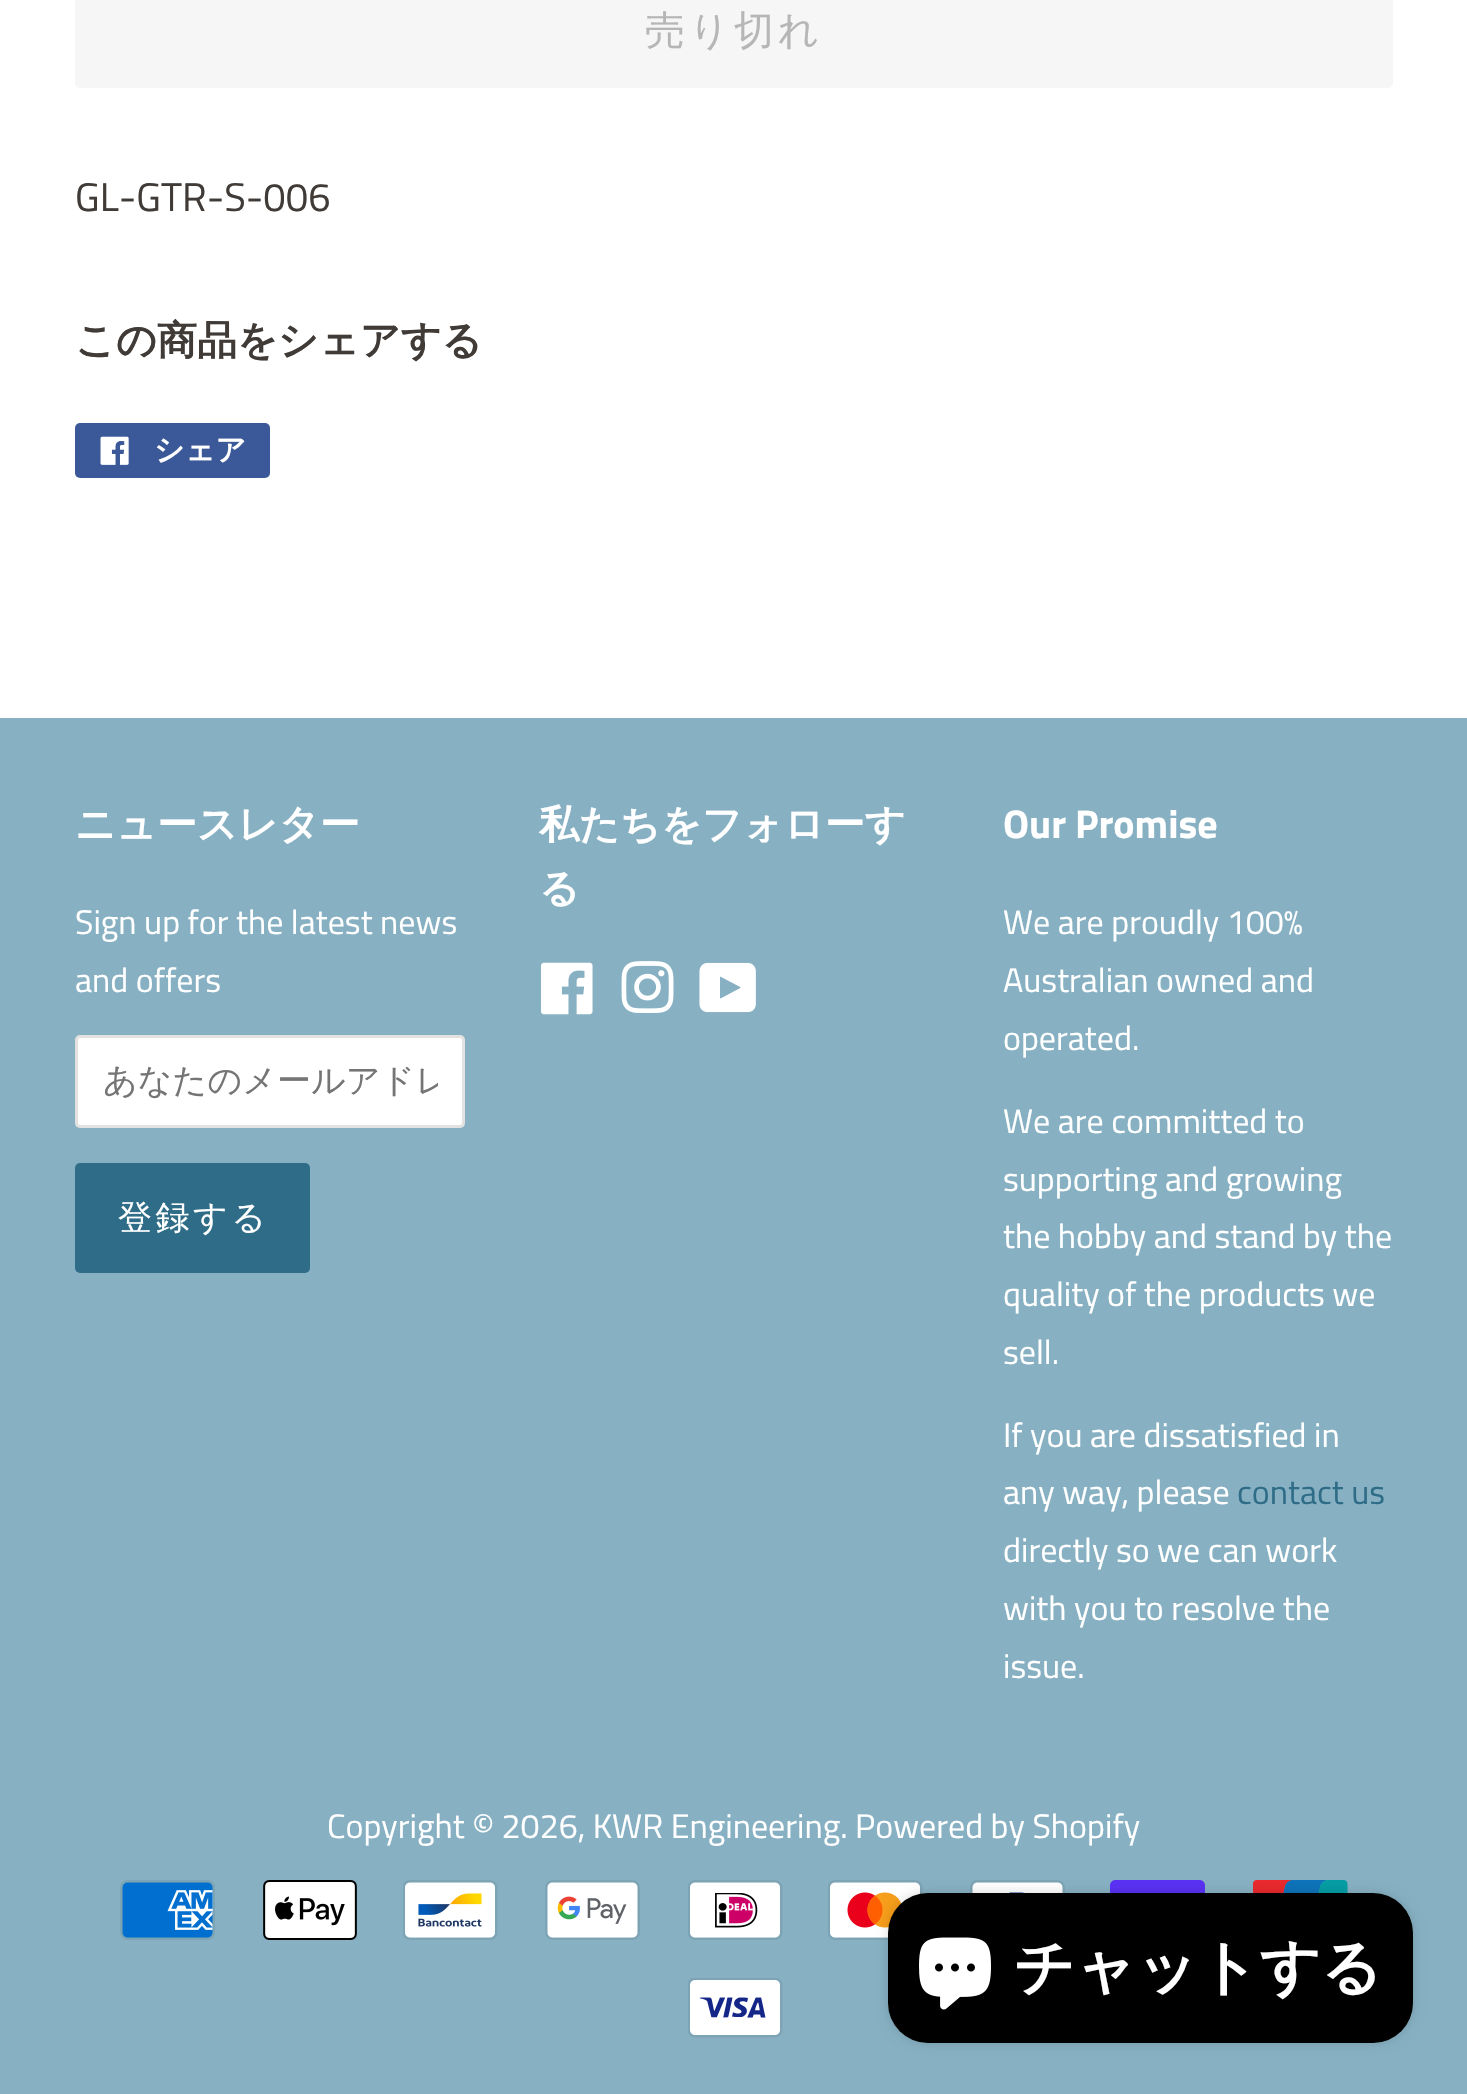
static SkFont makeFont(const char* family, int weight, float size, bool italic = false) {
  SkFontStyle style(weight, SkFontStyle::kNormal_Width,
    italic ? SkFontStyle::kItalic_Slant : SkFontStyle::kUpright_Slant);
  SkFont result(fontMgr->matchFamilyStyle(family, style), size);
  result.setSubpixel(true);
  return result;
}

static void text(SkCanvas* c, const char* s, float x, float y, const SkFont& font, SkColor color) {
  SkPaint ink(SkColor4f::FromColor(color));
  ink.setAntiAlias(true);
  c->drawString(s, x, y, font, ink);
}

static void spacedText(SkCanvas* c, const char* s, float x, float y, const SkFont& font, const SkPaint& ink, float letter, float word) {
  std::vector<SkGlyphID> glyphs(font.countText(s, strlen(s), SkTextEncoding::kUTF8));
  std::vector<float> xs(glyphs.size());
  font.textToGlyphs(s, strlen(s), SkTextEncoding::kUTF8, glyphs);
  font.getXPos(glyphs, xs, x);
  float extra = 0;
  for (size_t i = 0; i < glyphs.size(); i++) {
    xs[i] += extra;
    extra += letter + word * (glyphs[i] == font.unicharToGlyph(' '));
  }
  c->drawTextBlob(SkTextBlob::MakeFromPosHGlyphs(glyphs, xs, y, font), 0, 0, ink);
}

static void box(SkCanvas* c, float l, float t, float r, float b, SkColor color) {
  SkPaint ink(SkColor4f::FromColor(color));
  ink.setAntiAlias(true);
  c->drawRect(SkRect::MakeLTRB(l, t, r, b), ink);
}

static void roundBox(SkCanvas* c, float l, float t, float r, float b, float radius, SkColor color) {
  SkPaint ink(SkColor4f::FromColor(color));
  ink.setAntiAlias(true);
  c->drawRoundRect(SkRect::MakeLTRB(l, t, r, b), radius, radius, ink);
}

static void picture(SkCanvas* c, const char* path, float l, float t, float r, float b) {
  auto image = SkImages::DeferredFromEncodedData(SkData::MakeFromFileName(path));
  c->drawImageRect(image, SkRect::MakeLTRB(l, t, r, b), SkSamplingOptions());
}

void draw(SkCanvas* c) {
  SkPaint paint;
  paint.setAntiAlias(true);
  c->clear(0xffffffff);
  roundBox(c, 75, -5, 1393, 88, 5, 0xfff6f6f6);
  SkFont face1 = makeFont("WenQuanYi Zen Hei", 500, 40);
  paint.setColor(0xffb6b6b6);
  spacedText(c, "売り切れ", 645, 44, face1, paint, 4, 0);
  SkFont face2 = makeFont("Titillium Web", 400, 40);
  text(c, "GL-GTR-S-006", 75, 211, face2, 0xff403b37);
  SkFont face3 = makeFont("WenQuanYi Zen Hei", 700, 40);
  text(c, "この商品をシェアする", 75, 354, face3, 0xff403b37);
  roundBox(c, 75, 423, 270, 478, 5, 0xff3b5998);
  picture(c, "img_01.png", 100, 436, 129, 465);
  SkFont face4 = makeFont("WenQuanYi Zen Hei", 700, 30);
  text(c, "シェア", 154, 460, face4, 0xffffffff);
  box(c, 0, 718, 1467, 2094, 0xff87b1c3);
  text(c, "ニュースレター", 75, 838, face3, 0xffffffff);
  SkFont face5 = makeFont("Titillium Web", 400, 34);
  text(c, "Sign up for the latest news", 75, 934, face5, 0xffffffff);
  text(c, "and offers", 75, 992, face5, 0xffffffff);
  roundBox(c, 75, 1035, 465, 1128, 5, 0xffffffff);
  paint.setStyle(SkPaint::kStroke_Style);
  paint.setStrokeWidth(3);
  paint.setColor(0x26403b37);
  c->drawRoundRect(SkRect::MakeLTRB(76.5f, 1036.5f, 463.5f, 1126.5f), 3.5f, 3.5f, paint);
  c->save();
  c->clipRect(SkRect::MakeLTRB(103, 1055, 438, 1105));
  SkFont face6 = makeFont("WenQuanYi Zen Hei", 500, 34);
  text(c, "あなたのメールアドレ", 103, 1092, face6, 0xff757575);
  c->restore();
  roundBox(c, 75, 1163, 310, 1273, 5, 0xff2e6c87);
  paint.setStyle(SkPaint::kFill_Style);
  paint.setColor(0xffffffff);
  spacedText(c, "登録する", 118, 1229, face6, paint, 3.5f, 0);
  text(c, "私たちをフォローす", 539, 838, face3, 0xffffffff);
  text(c, "る", 539, 902, face3, 0xffffffff);
  picture(c, "img_02.png", 541, 962, 593, 1015);
  picture(c, "img_03.png", 621, 961, 674, 1013);
  picture(c, "img_04.png", 699, 962, 756, 1013);
  SkFont face7 = makeFont("Titillium Web", 700, 40);
  text(c, "Our Promise", 1003, 838, face7, 0xffffffff);
  text(c, "We are proudly 100%", 1003, 934, face5, 0xffffffff);
  text(c, "Australian owned and", 1003, 992, face5, 0xffffffff);
  text(c, "operated.", 1003, 1050, face5, 0xffffffff);
  text(c, "We are committed to", 1003, 1133, face5, 0xffffffff);
  text(c, "supporting and growing", 1003, 1191, face5, 0xffffffff);
  text(c, "the hobby and stand by the", 1003, 1248, face5, 0xffffffff);
  text(c, "quality of the products we", 1003, 1306, face5, 0xffffffff);
  text(c, "sell.", 1003, 1364, face5, 0xffffffff);
  text(c, "If you are dissatisfied in", 1003, 1447, face5, 0xffffffff);
  text(c, "any way, please", 1003, 1504, face5, 0xffffffff);
  text(c, "contact us", 1237, 1504, face5, 0xff2e6c87);
  text(c, "directly so we can work", 1003, 1562, face5, 0xffffffff);
  text(c, "with you to resolve the", 1003, 1620, face5, 0xffffffff);
  text(c, "issue.", 1003, 1678, face5, 0xffffffff);
  text(c, "Copyright © 2026, KWR Engineering. Powered by Shopify", 327, 1838, face5, 0xffffffff);
  picture(c, "img_05.png", 120, 1880, 215, 1940);
  picture(c, "img_06.png", 263, 1880, 357, 1940);
  picture(c, "img_07.png", 403, 1880, 498, 1940);
  picture(c, "img_08.png", 545, 1880, 640, 1940);
  picture(c, "img_09.png", 688, 1880, 783, 1940);
  picture(c, "img_10.png", 828, 1880, 923, 1940);
  picture(c, "img_11.png", 970, 1880, 1065, 1893);
  picture(c, "img_12.png", 1110, 1880, 1205, 1893);
  picture(c, "img_13.png", 1253, 1880, 1348, 1893);
  picture(c, "img_14.png", 688, 1978, 783, 2038);
  paint.setColor(0x26000000);
  paint.setMaskFilter(SkMaskFilter::MakeBlur(kNormal_SkBlurStyle, 6));
  c->drawRoundRect(SkRect::MakeLTRB(888, 1893, 1413, 2043), 40, 40, paint);
  paint.setMaskFilter(nullptr);
  roundBox(c, 888, 1893, 1413, 2043, 40, 0xff000000);
  picture(c, "img_15.png", 919, 1937, 991, 2010);
  SkFont face8 = makeFont("WenQuanYi Zen Hei", 700, 60);
  text(c, "チャットする", 1014, 1988, face8, 0xffffffff);
}
